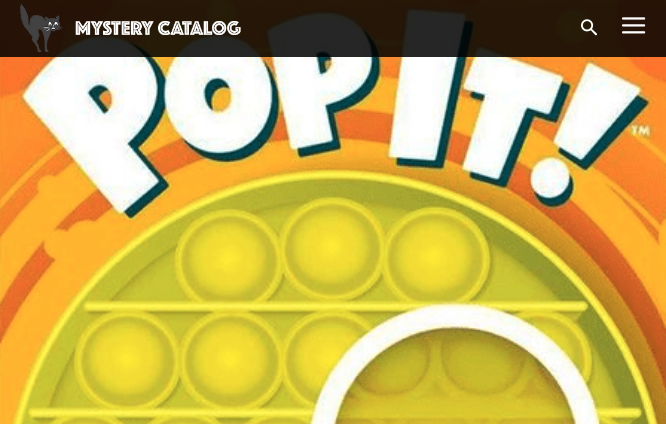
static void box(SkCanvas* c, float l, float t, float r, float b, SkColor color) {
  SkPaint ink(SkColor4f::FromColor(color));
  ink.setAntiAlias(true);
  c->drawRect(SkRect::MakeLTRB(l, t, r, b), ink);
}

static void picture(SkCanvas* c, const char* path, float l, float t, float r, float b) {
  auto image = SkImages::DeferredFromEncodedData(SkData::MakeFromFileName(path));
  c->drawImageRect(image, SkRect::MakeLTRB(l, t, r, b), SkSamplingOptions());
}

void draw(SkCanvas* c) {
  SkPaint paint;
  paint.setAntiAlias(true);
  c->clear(0xffffffff);
  picture(c, "img_01.png", 0, 0, 666, 424);
  box(c, 0, 0, 666, 57, 0xd9000000);
  picture(c, "img_02.png", 20, 4, 241, 52);
  picture(c, "img_03.png", 581, 19, 597, 36);
  picture(c, "img_04.png", 622, 17, 646, 34);
}
